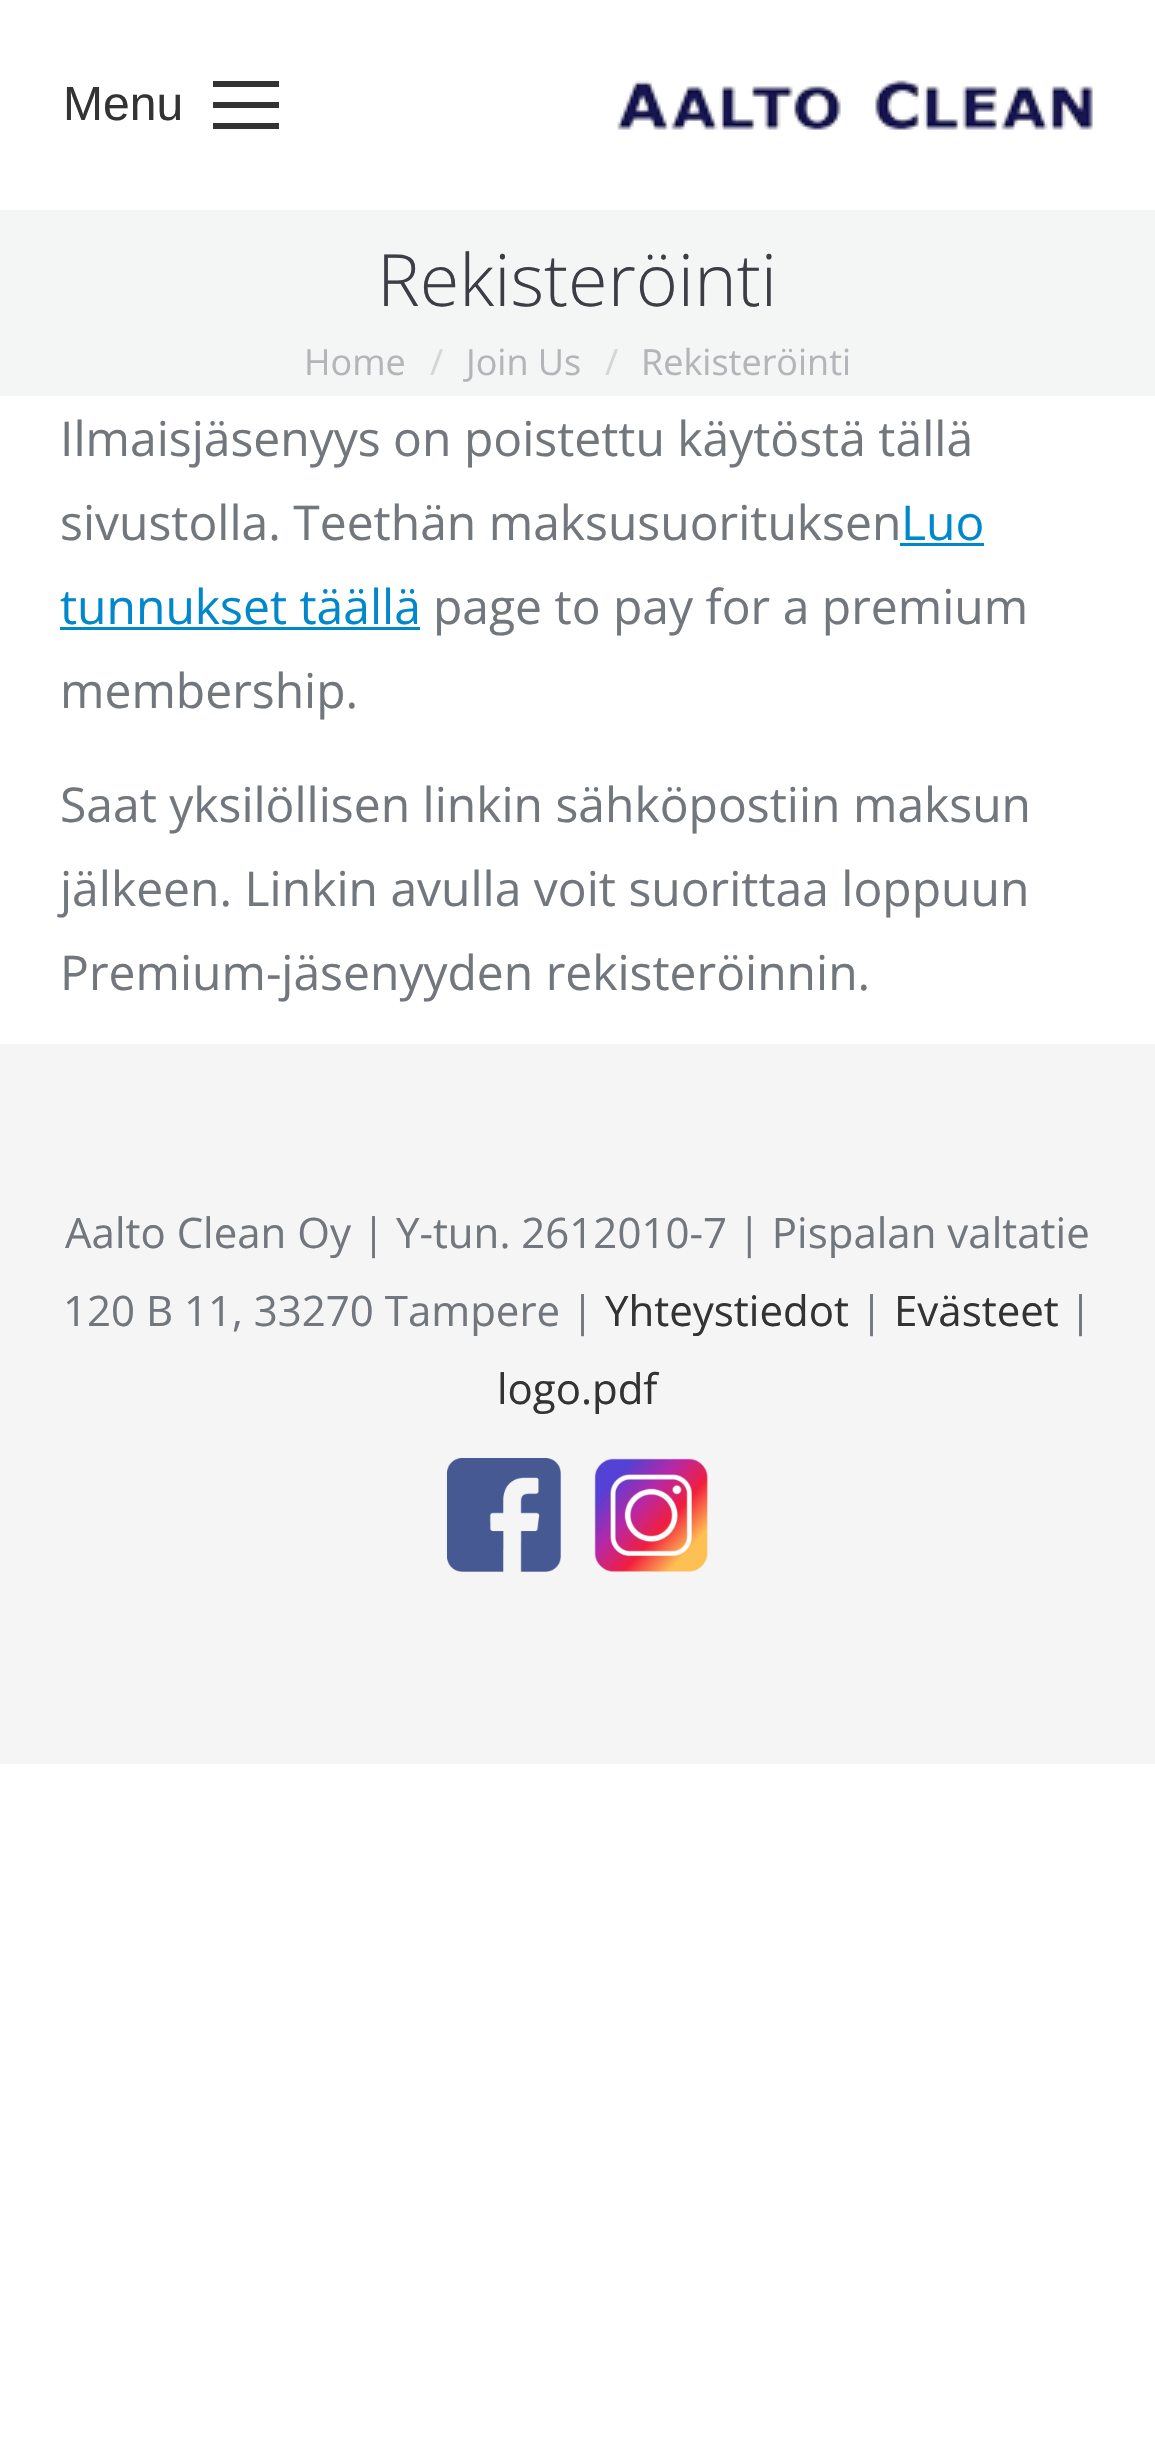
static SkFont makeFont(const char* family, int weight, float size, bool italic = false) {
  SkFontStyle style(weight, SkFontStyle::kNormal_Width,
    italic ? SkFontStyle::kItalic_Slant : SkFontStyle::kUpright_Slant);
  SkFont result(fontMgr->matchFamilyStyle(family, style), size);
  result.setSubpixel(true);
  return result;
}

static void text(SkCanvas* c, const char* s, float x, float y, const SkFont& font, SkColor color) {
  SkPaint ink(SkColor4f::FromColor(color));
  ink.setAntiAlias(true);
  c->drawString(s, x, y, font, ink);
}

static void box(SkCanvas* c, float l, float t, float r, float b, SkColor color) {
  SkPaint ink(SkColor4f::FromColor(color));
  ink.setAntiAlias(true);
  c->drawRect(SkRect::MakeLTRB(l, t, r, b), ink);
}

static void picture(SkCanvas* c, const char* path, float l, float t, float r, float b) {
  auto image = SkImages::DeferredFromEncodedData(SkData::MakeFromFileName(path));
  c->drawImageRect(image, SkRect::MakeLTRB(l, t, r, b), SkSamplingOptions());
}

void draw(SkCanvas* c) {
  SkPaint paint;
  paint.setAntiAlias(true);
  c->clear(0xffffffff);
  SkFont face1 = makeFont("Liberation Sans", 400, 48);
  text(c, "Menu", 63, 120, face1, 0xff333333);
  box(c, 213, 81, 279, 87, 0xff333333);
  box(c, 213, 102, 279, 108, 0xff333333);
  box(c, 213, 123, 279, 129, 0xff333333);
  picture(c, "img_01.png", 617, 80, 1093, 130);
  box(c, 0, 210, 1155, 396, 0xfff4f5f5);
  SkFont face2 = makeFont("Open Sans", 300, 72);
  text(c, "Rekisteröinti", 377, 306, face2, 0xff3c3e45);
  SkFont face3 = makeFont("Open Sans", 400, 36);
  text(c, "Home", 304, 375, face3, 0xffb3b5b9);
  text(c, "/", 430, 375, face3, 0xffd4d5d7);
  text(c, "Join Us", 466, 375, face3, 0xffb3b5b9);
  text(c, "/", 605, 375, face3, 0xffd4d5d7);
  text(c, "Rekisteröinti", 641, 375, face3, 0xffb3b5b9);
  SkFont face4 = makeFont("Open Sans", 400, 48);
  text(c, "Ilmaisjäsenyys on poistettu käytöstä tällä", 60, 456, face4, 0xff72777d);
  text(c, "sivustolla. Teethän maksusuorituksen", 60, 540, face4, 0xff72777d);
  text(c, "Luo", 901, 540, face4, 0xff0188cc);
  box(c, 900, 543, 984, 546, 0xff0188cc);
  text(c, "tunnukset täällä", 60, 624, face4, 0xff0188cc);
  box(c, 60, 627, 420, 630, 0xff0188cc);
  text(c, "page to pay for a premium", 433, 624, face4, 0xff72777d);
  text(c, "membership.", 60, 708, face4, 0xff72777d);
  text(c, "Saat yksilöllisen linkin sähköpostiin maksun", 60, 822, face4, 0xff72777d);
  text(c, "jälkeen. Linkin avulla voit suorittaa loppuun", 60, 906, face4, 0xff72777d);
  text(c, "Premium-jäsenyyden rekisteröinnin.", 60, 990, face4, 0xff72777d);
  box(c, 0, 1044, 1155, 1764, 0xfff5f5f5);
  SkFont face5 = makeFont("Open Sans", 400, 42);
  text(c, "Aalto Clean Oy | Y-tun. 2612010-7 | Pispalan valtatie", 65, 1248, face5, 0xff72777d);
  text(c, "120 B 11, 33270 Tampere |", 63, 1326, face5, 0xff72777d);
  text(c, "Yhteystiedot", 605, 1326, face5, 0xff333333);
  text(c, "|", 860, 1326, face5, 0xff72777d);
  text(c, "Evästeet", 894, 1326, face5, 0xff333333);
  text(c, "|", 1069, 1326, face5, 0xff72777d);
  text(c, "logo.pdf", 497, 1404, face5, 0xff333333);
  picture(c, "img_02.png", 447, 1458, 561, 1572);
  picture(c, "img_03.png", 594, 1458, 708, 1572);
}
